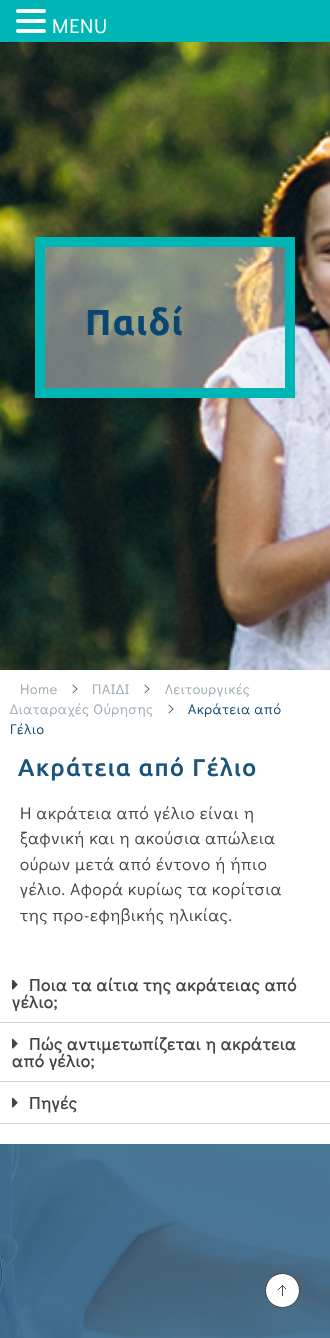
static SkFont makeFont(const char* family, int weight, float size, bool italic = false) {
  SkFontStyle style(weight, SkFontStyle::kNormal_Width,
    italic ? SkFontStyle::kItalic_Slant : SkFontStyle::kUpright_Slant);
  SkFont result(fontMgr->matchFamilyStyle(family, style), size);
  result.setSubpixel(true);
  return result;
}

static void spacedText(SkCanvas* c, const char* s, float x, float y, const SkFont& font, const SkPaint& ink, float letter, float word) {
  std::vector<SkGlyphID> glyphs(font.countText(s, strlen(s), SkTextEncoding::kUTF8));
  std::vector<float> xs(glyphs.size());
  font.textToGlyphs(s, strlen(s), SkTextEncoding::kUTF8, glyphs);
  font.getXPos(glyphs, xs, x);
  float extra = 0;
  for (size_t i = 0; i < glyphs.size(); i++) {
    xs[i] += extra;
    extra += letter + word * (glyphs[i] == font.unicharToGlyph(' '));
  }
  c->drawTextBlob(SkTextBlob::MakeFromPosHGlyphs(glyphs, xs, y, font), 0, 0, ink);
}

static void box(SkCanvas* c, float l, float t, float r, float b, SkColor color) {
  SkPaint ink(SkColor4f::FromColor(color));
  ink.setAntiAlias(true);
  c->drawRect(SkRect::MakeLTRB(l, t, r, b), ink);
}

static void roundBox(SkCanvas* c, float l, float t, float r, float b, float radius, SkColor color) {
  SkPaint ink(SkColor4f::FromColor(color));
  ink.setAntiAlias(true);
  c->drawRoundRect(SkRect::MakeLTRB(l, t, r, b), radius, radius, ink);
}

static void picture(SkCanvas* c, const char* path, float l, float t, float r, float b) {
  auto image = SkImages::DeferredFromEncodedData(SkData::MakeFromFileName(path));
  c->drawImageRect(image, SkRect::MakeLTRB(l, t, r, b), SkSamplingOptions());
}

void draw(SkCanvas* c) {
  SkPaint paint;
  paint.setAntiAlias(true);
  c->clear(0xffffffff);
  box(c, 0, 0, 330, 42, 0xff00b5b5);
  roundBox(c, 16, 9, 46, 13, 2, 0xffffffff);
  roundBox(c, 16, 19, 46, 23, 2, 0xffffffff);
  roundBox(c, 16, 29, 46, 33, 2, 0xffffffff);
  SkFont face1 = makeFont("Didact Gothic", 400, 20);
  paint.setColor(0xffffffff);
  spacedText(c, "MENU", 52, 33, face1, paint, 0.7f, 0);
  picture(c, "img_01.png", 0, 42, 330, 670);
  paint.setStyle(SkPaint::kStroke_Style);
  paint.setStrokeWidth(10);
  paint.setColor(0xff00b5b5);
  c->drawRect(SkRect::MakeLTRB(40, 242, 290, 393), paint);
  box(c, 45, 247, 285, 388, 0x6effffff);
  SkFont face2 = makeFont("Ubuntu", 700, 36);
  paint.setStyle(SkPaint::kFill_Style);
  paint.setColor(0xff094672);
  spacedText(c, "Παιδί", 85, 335, face2, paint, 1.25f, 0);
  SkFont face3 = makeFont("Didact Gothic", 400, 14);
  paint.setColor(0xff9ca9b3);
  spacedText(c, "Home", 20, 694, face3, paint, 0.7f, 0);
  picture(c, "img_02.png", 72, 684, 78, 694);
  spacedText(c, "ΠΑΙΔΙ", 92, 694, face3, paint, 0.7f, 0);
  picture(c, "img_02.png", 144, 684, 150, 694);
  spacedText(c, "Λειτουργικές", 165, 694, face3, paint, 0.7f, 0);
  spacedText(c, "Διαταραχές Ούρησης", 10, 714, face3, paint, 0.7f, 0);
  picture(c, "img_02.png", 168, 704, 174, 714);
  paint.setColor(0xff094672);
  spacedText(c, "Ακράτεια από", 188, 714, face3, paint, 0.7f, 0);
  spacedText(c, "Γέλιο", 10, 734, face3, paint, 0.7f, 0);
  SkFont face4 = makeFont("Ubuntu", 500, 24);
  paint.setColor(0xff1c547c);
  spacedText(c, "Ακράτεια από Γέλιο", 18, 776, face4, paint, 1.25f, 0);
  SkFont face5 = makeFont("Didact Gothic", 400, 17);
  paint.setColor(0xff444444);
  spacedText(c, "Η ακράτεια από γέλιο είναι η", 20, 819, face5, paint, 0.7f, 0);
  spacedText(c, "ξαφνική και η ακούσια απώλεια", 20, 844, face5, paint, 0.7f, 0);
  spacedText(c, "ούρων μετά από έντονο ή ήπιο", 20, 870, face5, paint, 0.7f, 0);
  spacedText(c, "γέλιο. Αφορά κυρίως τα κορίτσια", 20, 895, face5, paint, 0.7f, 0);
  spacedText(c, "της προ-εφηβικής ηλικίας.", 20, 921, face5, paint, 0.7f, 0);
  box(c, 0, 1022, 330, 1023, 0xffd4d4d4);
  picture(c, "img_03.png", 12, 979, 18, 990);
  SkFont face6 = makeFont("Didact Gothic", 700, 17);
  spacedText(c, "Ποια τα αίτια της ακράτειας από", 29, 991, face6, paint, 0.7f, 0);
  spacedText(c, "γέλιο;", 12, 1008, face6, paint, 0.7f, 0);
  box(c, 0, 1081, 330, 1082, 0xffd4d4d4);
  picture(c, "img_03.png", 12, 1038, 18, 1049);
  spacedText(c, "Πώς αντιμετωπίζεται η ακράτεια", 29, 1050, face6, paint, 0.7f, 0);
  spacedText(c, "από γέλιο;", 12, 1067, face6, paint, 0.7f, 0);
  box(c, 0, 1123, 330, 1124, 0xffd4d4d4);
  picture(c, "img_03.png", 12, 1097, 18, 1108);
  spacedText(c, "Πηγές", 29, 1109, face6, paint, 0.7f, 0);
  picture(c, "img_04.png", 0, 1144, 330, 1338);
  paint.setColor(0xffffffff);
  c->drawCircle(282.5f, 1290.5f, 17, paint);
  paint.setStyle(SkPaint::kStroke_Style);
  paint.setStrokeWidth(1);
  paint.setColor(0xff3d3d3d);
  c->drawCircle(282.5f, 1290.5f, 17, paint);
  picture(c, "img_05.png", 278, 1285, 286, 1296);
}
